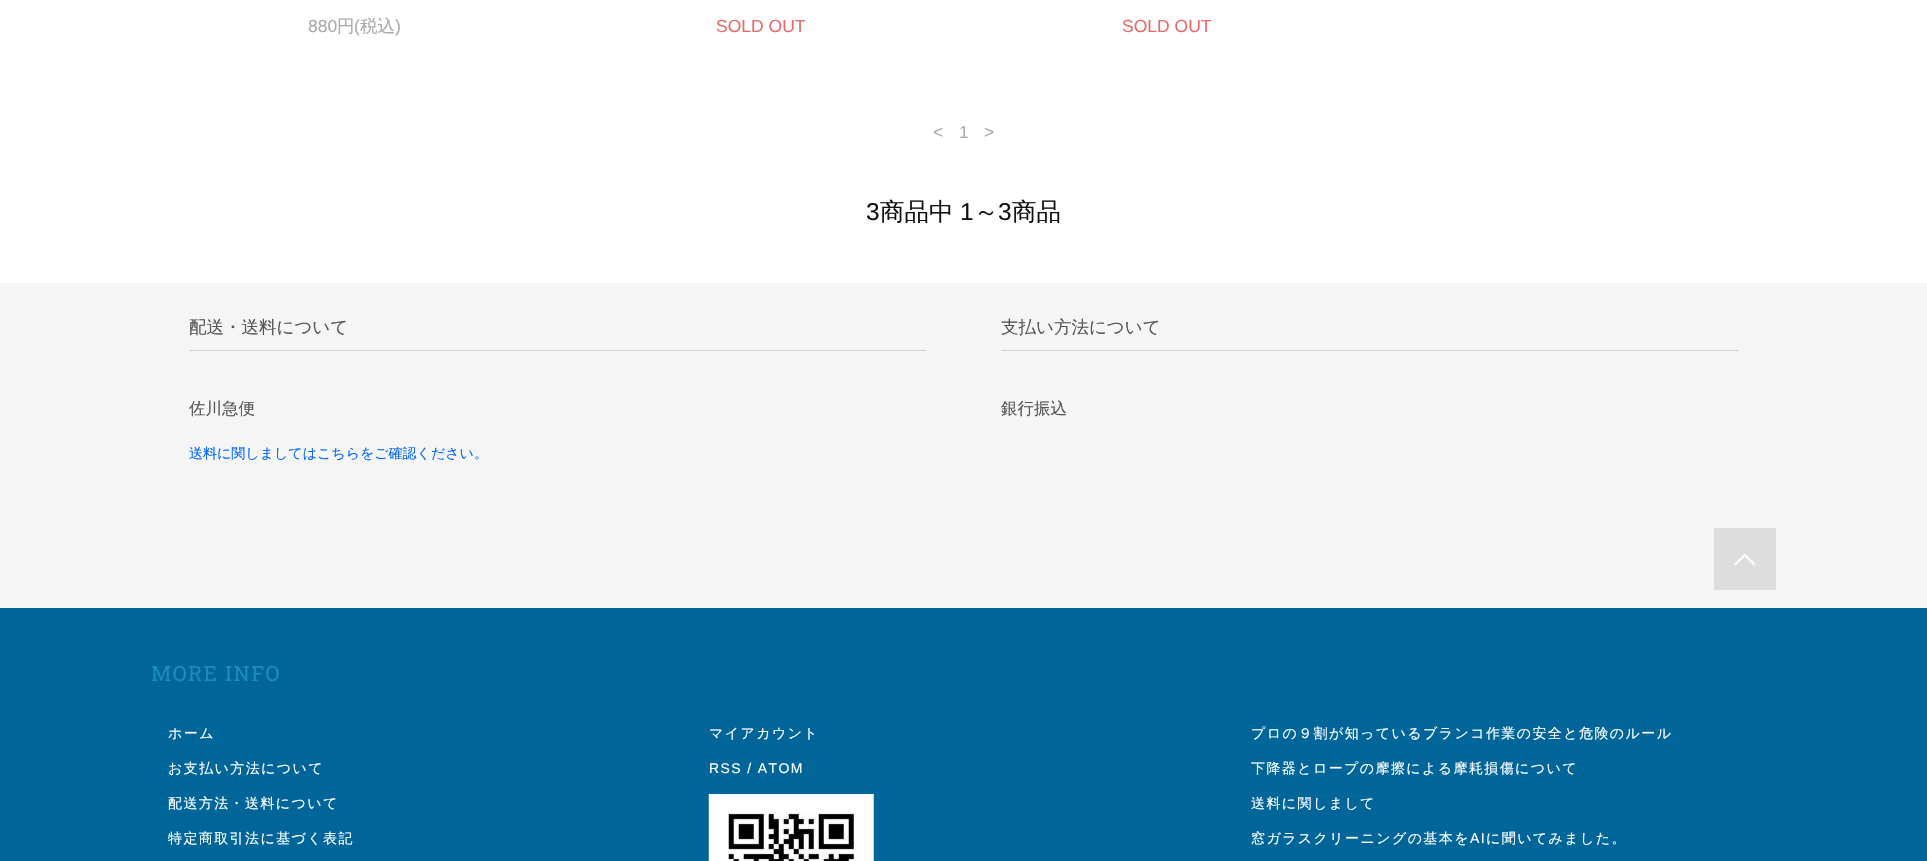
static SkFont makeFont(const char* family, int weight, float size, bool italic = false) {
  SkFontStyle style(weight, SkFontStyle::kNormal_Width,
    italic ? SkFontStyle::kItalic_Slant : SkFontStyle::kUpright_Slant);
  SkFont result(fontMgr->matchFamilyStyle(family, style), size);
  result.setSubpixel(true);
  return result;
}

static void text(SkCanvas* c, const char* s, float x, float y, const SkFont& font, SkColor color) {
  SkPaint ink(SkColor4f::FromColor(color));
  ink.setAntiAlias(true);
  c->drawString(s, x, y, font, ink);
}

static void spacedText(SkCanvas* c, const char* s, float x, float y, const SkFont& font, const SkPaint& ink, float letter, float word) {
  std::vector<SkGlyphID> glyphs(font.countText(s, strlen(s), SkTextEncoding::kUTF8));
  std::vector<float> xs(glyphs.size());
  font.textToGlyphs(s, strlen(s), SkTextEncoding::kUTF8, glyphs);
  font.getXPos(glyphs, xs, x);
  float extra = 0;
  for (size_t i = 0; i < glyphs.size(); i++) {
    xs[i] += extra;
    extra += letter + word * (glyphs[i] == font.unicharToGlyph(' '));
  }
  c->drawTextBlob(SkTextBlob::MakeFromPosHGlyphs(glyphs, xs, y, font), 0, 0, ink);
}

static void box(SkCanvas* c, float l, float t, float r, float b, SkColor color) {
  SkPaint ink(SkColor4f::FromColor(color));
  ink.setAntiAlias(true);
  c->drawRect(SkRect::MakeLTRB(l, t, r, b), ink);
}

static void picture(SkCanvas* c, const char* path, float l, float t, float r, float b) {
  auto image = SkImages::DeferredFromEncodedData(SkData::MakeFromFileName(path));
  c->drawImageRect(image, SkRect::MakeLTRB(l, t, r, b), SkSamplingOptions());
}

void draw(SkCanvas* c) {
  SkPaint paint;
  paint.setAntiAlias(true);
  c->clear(0xffffffff);
  SkFont face1 = makeFont("Liberation Sans", 400, 17.5f);
  text(c, "880", 308, 32, face1, 0xffaaaaaa);
  SkFont face2 = makeFont("WenQuanYi Zen Hei", 500, 17.5f);
  text(c, "円", 337, 32, face2, 0xffaaaaaa);
  text(c, "(", 354, 32, face1, 0xffaaaaaa);
  text(c, "税込", 360, 32, face2, 0xffaaaaaa);
  text(c, ")", 395, 32, face1, 0xffaaaaaa);
  text(c, "SOLD OUT", 716, 32, face1, 0xffe66a6a);
  text(c, "SOLD OUT", 1122, 32, face1, 0xffe66a6a);
  text(c, "<", 933, 138, face1, 0xffaaaaaa);
  text(c, "1", 959, 138, face1, 0xffaaaaaa);
  text(c, ">", 984, 138, face1, 0xffaaaaaa);
  SkFont face3 = makeFont("Liberation Sans", 400, 24.5f);
  text(c, "3", 866, 220, face3, 0xff111111);
  SkFont face4 = makeFont("WenQuanYi Zen Hei", 500, 24.5f);
  text(c, "商品中", 880, 220, face4, 0xff111111);
  text(c, "1", 960, 220, face3, 0xff111111);
  text(c, "～", 974, 220, face4, 0xff111111);
  text(c, "3", 998, 220, face3, 0xff111111);
  text(c, "商品", 1012, 220, face4, 0xff111111);
  box(c, 0, 283, 1927, 608, 0xfff5f5f5);
  box(c, 189, 350, 926, 351, 0xffd3d3d3);
  text(c, "配送・送料について", 189, 333, face2, 0xff555555);
  SkFont face5 = makeFont("WenQuanYi Zen Hei", 500, 16.5f);
  text(c, "佐川急便", 189, 414, face5, 0xff555555);
  SkFont face6 = makeFont("WenQuanYi Zen Hei", 500, 14);
  text(c, "送料に関しましてはこちらをご確認ください。", 189, 458, face6, 0xff0066ff);
  box(c, 1001, 350, 1739, 351, 0xffd3d3d3);
  text(c, "支払い方法について", 1001, 333, face2, 0xff555555);
  text(c, "銀行振込", 1001, 414, face5, 0xff555555);
  box(c, 1714, 528, 1776, 590, 0xffdddddd);
  picture(c, "img_01.png", 1733, 554, 1756, 566);
  box(c, 0, 608, 1927, 861, 0xff006699);
  SkFont face7 = makeFont("Roboto Slab", 400, 21);
  paint.setColor(0xff1a8dbe);
  spacedText(c, "MORE INFO", 151, 681, face7, paint, 1.4f, 0);
  paint.setColor(0xffffffff);
  spacedText(c, "ホーム", 168, 738, face6, paint, 1.4f, 0);
  spacedText(c, "お支払い方法について", 168, 773, face6, paint, 1.4f, 0);
  spacedText(c, "配送方法・送料について", 168, 808, face6, paint, 1.4f, 0);
  spacedText(c, "特定商取引法に基づく表記", 168, 843, face6, paint, 1.4f, 0);
  spacedText(c, "マイアカウント", 709, 738, face6, paint, 1.4f, 0);
  SkFont face8 = makeFont("Liberation Sans", 400, 14);
  spacedText(c, "RSS / ATOM", 709, 773, face8, paint, 1.4f, 0);
  picture(c, "img_02.png", 708, 794, 874, 861);
  spacedText(c, "プロの９割が知っているブランコ作業の安全と危険のルール", 1251, 738, face6, paint, 1.4f, 0);
  spacedText(c, "下降器とロープの摩擦による摩耗損傷について", 1251, 773, face6, paint, 1.4f, 0);
  spacedText(c, "送料に関しまして", 1251, 808, face6, paint, 1.4f, 0);
  spacedText(c, "窓ガラスクリーニングの基本を", 1251, 843, face6, paint, 1.4f, 0);
  spacedText(c, "AI", 1470, 843, face8, paint, 1.4f, 0);
  spacedText(c, "に聞いてみました。", 1486, 843, face6, paint, 1.4f, 0);
}
